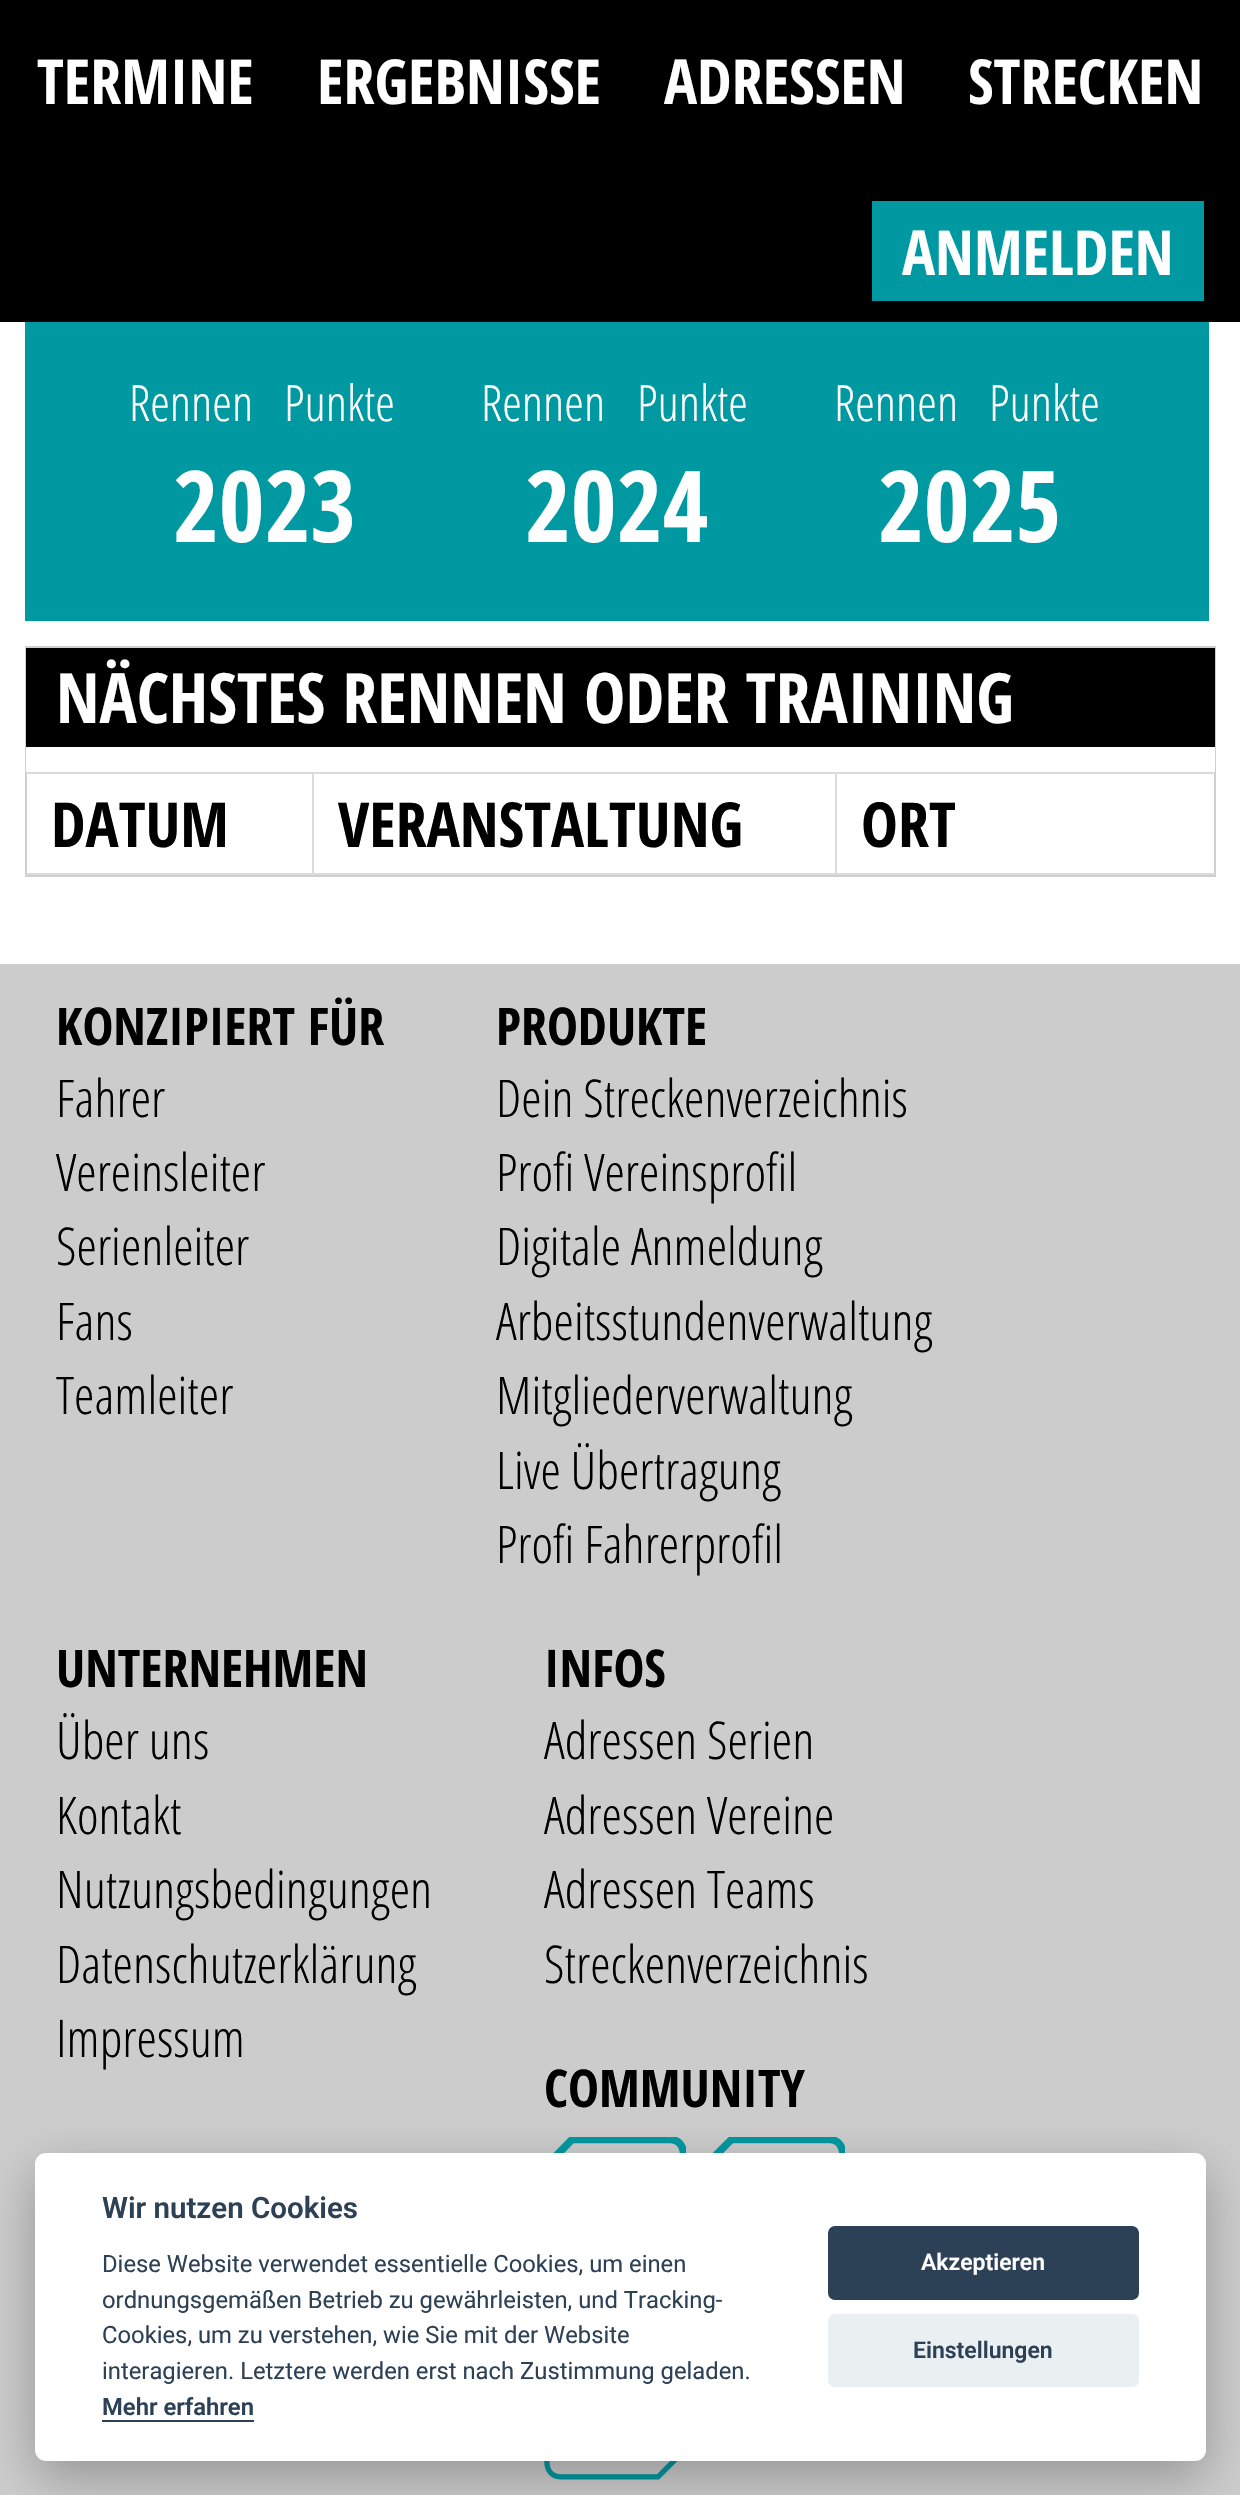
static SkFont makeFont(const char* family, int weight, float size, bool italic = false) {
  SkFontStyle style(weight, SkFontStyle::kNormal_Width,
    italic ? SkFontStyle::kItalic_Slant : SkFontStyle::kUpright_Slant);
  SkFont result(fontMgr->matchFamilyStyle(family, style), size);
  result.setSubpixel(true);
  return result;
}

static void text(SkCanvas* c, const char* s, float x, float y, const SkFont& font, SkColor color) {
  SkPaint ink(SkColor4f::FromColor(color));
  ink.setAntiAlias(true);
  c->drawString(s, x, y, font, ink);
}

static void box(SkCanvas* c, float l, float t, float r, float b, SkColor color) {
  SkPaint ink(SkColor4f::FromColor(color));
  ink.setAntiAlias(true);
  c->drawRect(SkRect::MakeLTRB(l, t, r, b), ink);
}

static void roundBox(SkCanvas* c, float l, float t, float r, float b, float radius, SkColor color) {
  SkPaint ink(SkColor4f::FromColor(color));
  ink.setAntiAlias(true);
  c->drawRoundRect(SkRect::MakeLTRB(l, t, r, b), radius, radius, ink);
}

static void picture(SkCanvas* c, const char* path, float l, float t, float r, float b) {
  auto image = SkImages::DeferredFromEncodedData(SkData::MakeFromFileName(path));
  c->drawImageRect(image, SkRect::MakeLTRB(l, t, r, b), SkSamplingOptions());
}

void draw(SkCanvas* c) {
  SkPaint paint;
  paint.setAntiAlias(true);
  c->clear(0xffffffff);
  box(c, 0, 0, 1240, 322, 0xff000000);
  SkFont face1 = makeFont("Open Sans Condensed", 700, 62);
  text(c, "TERMINE", 37, 104, face1, 0xffffffff);
  text(c, "ERGEBNISSE", 317, 104, face1, 0xffffffff);
  text(c, "ADRESSEN", 664, 104, face1, 0xffffffff);
  text(c, "STRECKEN", 968, 104, face1, 0xffffffff);
  box(c, 872, 201, 1204, 301, 0xff0098a1);
  text(c, "ANMELDEN", 902, 275, face1, 0xffffffff);
  box(c, 25, 322, 1209, 621, 0xff0098a1);
  SkFont face2 = makeFont("Open Sans Condensed", 300, 50);
  text(c, "Rennen", 129, 421, face2, 0xffffffff);
  text(c, "Punkte", 284, 421, face2, 0xffffffff);
  SkFont face3 = makeFont("Open Sans Condensed", 700, 99);
  text(c, "2023", 173, 542, face3, 0xffffffff);
  text(c, "Rennen", 481, 421, face2, 0xffffffff);
  text(c, "Punkte", 637, 421, face2, 0xffffffff);
  text(c, "2024", 525, 542, face3, 0xffffffff);
  text(c, "Rennen", 834, 421, face2, 0xffffffff);
  text(c, "Punkte", 989, 421, face2, 0xffffffff);
  text(c, "2025", 878, 542, face3, 0xffffffff);
  paint.setStyle(SkPaint::kStroke_Style);
  paint.setStrokeWidth(2);
  paint.setColor(0xffcfcfd0);
  c->drawRect(SkRect::MakeLTRB(26, 647, 1215, 876), paint);
  box(c, 26, 648, 1215, 747, 0xff000000);
  SkFont face4 = makeFont("Open Sans Condensed", 700, 69.5f);
  text(c, "NÄCHSTES RENNEN ODER TRAINING", 56, 723, face4, 0xffffffff);
  box(c, 26, 747, 1215, 772, 0xffffffff);
  box(c, 26, 772, 1215, 774, 0xffdcdbdc);
  box(c, 26, 873, 1215, 875, 0xffdcdbdc);
  text(c, "DATUM", 51, 847, face1, 0xff000000);
  box(c, 312, 772, 314, 875, 0xffdcdbdc);
  text(c, "VERANSTALTUNG", 338, 847, face1, 0xff000000);
  box(c, 835, 772, 837, 875, 0xffdcdbdc);
  text(c, "ORT", 861, 847, face1, 0xff000000);
  box(c, 0, 964, 1240, 2495, 0xffcccccc);
  SkFont face5 = makeFont("Open Sans Condensed", 700, 52);
  text(c, "KONZIPIERT FÜR", 56, 1045, face5, 0xff000000);
  SkFont face6 = makeFont("Open Sans Condensed", 300, 52);
  text(c, "Fahrer", 56, 1117, face6, 0xff000000);
  text(c, "Vereinsleiter", 56, 1191, face6, 0xff000000);
  text(c, "Serienleiter", 56, 1265, face6, 0xff000000);
  text(c, "Fans", 56, 1340, face6, 0xff000000);
  text(c, "Teamleiter", 56, 1414, face6, 0xff000000);
  text(c, "PRODUKTE", 496, 1045, face5, 0xff000000);
  text(c, "Dein Streckenverzeichnis", 496, 1117, face6, 0xff000000);
  text(c, "Profi Vereinsprofil", 496, 1191, face6, 0xff000000);
  text(c, "Digitale Anmeldung", 496, 1265, face6, 0xff000000);
  text(c, "Arbeitsstundenverwaltung", 496, 1340, face6, 0xff000000);
  text(c, "Mitgliederverwaltung", 496, 1414, face6, 0xff000000);
  text(c, "Live Übertragung", 496, 1489, face6, 0xff000000);
  text(c, "Profi Fahrerprofil", 496, 1563, face6, 0xff000000);
  text(c, "UNTERNEHMEN", 56, 1687, face5, 0xff000000);
  text(c, "Über uns", 56, 1759, face6, 0xff000000);
  text(c, "Kontakt", 56, 1834, face6, 0xff000000);
  text(c, "Nutzungsbedingungen", 56, 1908, face6, 0xff000000);
  text(c, "Datenschutzerklärung", 56, 1983, face6, 0xff000000);
  text(c, "Impressum", 56, 2057, face6, 0xff000000);
  text(c, "INFOS", 544, 1687, face5, 0xff000000);
  text(c, "Adressen Serien", 544, 1759, face6, 0xff000000);
  text(c, "Adressen Vereine", 544, 1834, face6, 0xff000000);
  text(c, "Adressen Teams", 544, 1908, face6, 0xff000000);
  text(c, "Streckenverzeichnis", 544, 1983, face6, 0xff000000);
  text(c, "COMMUNITY", 544, 2107, face5, 0xff000000);
  c->save();
  c->clipRect(SkRect::MakeLTRB(544, 2137, 686, 2245));
  paint.setStrokeWidth(7.5f);
  paint.setColor(0xff0098a1);
  c->drawPath(SkPathBuilder().moveTo(683.5f, 2217).lineTo(683.5f, 2153.5f).cubicTo(683.5f, 2153.5f, 683.5f, 2139.5f, 669.5f, 2139.5f).lineTo(572, 2139.5f).lineTo(547, 2165).lineTo(547, 2228).cubicTo(547, 2228, 547, 2242.5f, 561, 2242.5f).lineTo(658, 2242.5f).close().detach(), paint);
  c->restore();
  picture(c, "img_01.png", 712, 2137, 845, 2153);
  picture(c, "img_02.png", 544, 2461, 678, 2480);
  paint.setStyle(SkPaint::kFill_Style);
  paint.setColor(0x47020203);
  paint.setMaskFilter(SkMaskFilter::MakeBlur(kNormal_SkBlurStyle, 26));
  c->drawRoundRect(SkRect::MakeLTRB(35, 2170, 1206, 2478), 11, 11, paint);
  paint.setMaskFilter(nullptr);
  roundBox(c, 35, 2153, 1206, 2461, 11, 0xffffffff);
  SkFont face7 = makeFont("Roboto", 600, 29.5f);
  text(c, "Wir nutzen Cookies", 102, 2218, face7, 0xff2d4156);
  SkFont face8 = makeFont("Roboto", 400, 23.8f);
  text(c, "Diese Website verwendet essentielle Cookies, um einen", 102, 2272, face8, 0xff2d4156);
  text(c, "ordnungsgemäßen Betrieb zu gewährleisten, und Tracking-", 102, 2308, face8, 0xff2d4156);
  text(c, "Cookies, um zu verstehen, wie Sie mit der Website", 102, 2343, face8, 0xff2d4156);
  text(c, "interagieren. Letztere werden erst nach Zustimmung geladen.", 102, 2379, face8, 0xff2d4156);
  SkFont face9 = makeFont("Roboto", 600, 23.8f);
  text(c, "Mehr erfahren", 102, 2415, face9, 0xff2d4156);
  box(c, 102, 2420, 254, 2422, 0xff2d4156);
  roundBox(c, 828, 2226, 1139, 2300, 7, 0xff2d4156);
  SkFont face10 = makeFont("Roboto", 600, 23);
  text(c, "Akzeptieren", 921, 2270, face10, 0xffffffff);
  roundBox(c, 828, 2314, 1139, 2387, 7, 0xffeaeff2);
  text(c, "Einstellungen", 913, 2358, face10, 0xff2d4156);
}
